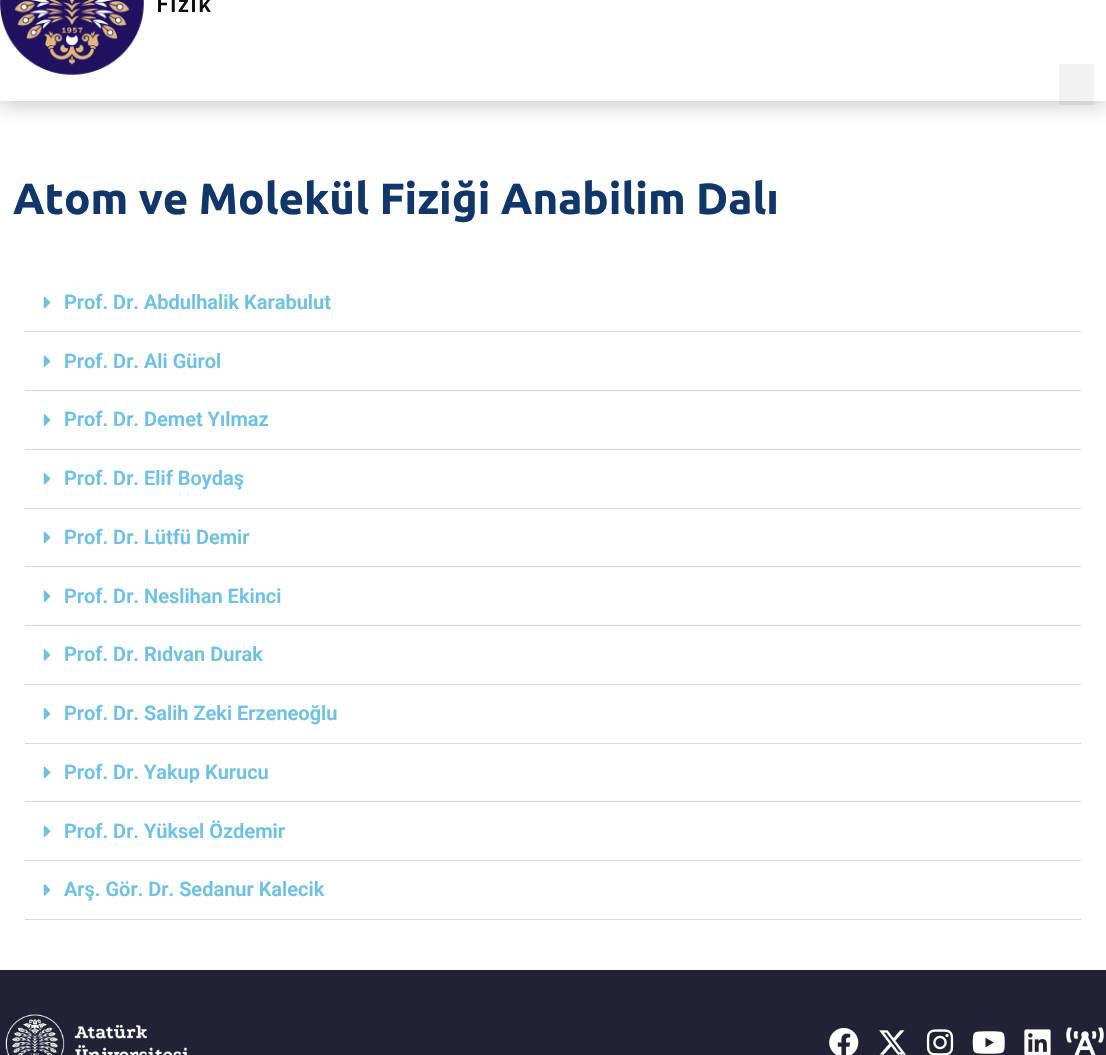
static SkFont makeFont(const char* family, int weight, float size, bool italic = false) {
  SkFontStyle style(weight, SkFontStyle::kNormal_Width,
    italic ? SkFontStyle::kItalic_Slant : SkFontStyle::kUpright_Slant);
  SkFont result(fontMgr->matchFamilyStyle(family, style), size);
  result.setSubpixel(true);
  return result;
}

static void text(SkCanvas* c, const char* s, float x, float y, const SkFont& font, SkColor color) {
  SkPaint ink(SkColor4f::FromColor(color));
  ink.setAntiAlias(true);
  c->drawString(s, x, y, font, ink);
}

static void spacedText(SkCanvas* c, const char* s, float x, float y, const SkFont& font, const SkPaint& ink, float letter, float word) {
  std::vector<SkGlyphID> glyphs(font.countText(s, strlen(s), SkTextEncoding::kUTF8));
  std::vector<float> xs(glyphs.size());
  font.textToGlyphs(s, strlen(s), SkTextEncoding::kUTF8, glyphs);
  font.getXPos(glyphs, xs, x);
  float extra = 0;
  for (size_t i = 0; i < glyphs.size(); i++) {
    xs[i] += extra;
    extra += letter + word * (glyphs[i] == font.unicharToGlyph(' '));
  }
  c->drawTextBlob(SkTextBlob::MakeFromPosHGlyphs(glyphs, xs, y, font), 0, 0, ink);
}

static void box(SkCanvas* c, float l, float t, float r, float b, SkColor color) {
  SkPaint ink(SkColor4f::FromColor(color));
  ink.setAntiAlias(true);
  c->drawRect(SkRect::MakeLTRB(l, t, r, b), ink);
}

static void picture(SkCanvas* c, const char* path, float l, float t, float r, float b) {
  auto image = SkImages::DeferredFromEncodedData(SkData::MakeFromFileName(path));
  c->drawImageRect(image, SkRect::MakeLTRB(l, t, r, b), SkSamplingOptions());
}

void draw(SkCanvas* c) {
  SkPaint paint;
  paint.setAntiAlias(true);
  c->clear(0xffffffff);
  c->save();
  c->clipRect(SkRect::MakeLTRB(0, 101, 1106, 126));
  paint.setColor(0xffc8c8c8);
  paint.setMaskFilter(SkMaskFilter::MakeBlur(kNormal_SkBlurStyle, 10));
  c->drawRect(SkRect::MakeLTRB(0, -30, 1106, 105), paint);
  paint.setMaskFilter(nullptr);
  c->restore();
  picture(c, "img_01.png", 0, 0, 144, 75);
  SkFont face1 = makeFont("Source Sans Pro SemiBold", 600, 25);
  paint.setColor(0xff0d0d0d);
  spacedText(c, "Fizik", 156, 12, face1, paint, 1.25f, 0);
  box(c, 1059, 64, 1094, 105, 0x0d000000);
  SkFont face2 = makeFont("Ubuntu", 700, 43.75f);
  text(c, "Atom ve Molekül Fiziği Anabilim Dalı", 13, 214, face2, 0xff113669);
  box(c, 25, 331, 1081, 332, 0xffd5d8dc);
  picture(c, "img_02.png", 43, 296, 51, 309);
  SkFont face3 = makeFont("Roboto", 600, 20);
  text(c, "Prof. Dr. Abdulhalik Karabulut", 64, 309, face3, 0xff6ec1e4);
  box(c, 25, 390, 1081, 391, 0xffd5d8dc);
  picture(c, "img_03.png", 43, 355, 51, 367);
  text(c, "Prof. Dr. Ali Gürol", 64, 368, face3, 0xff6ec1e4);
  box(c, 25, 449, 1081, 450, 0xffd5d8dc);
  picture(c, "img_04.png", 43, 414, 51, 426);
  text(c, "Prof. Dr. Demet Yılmaz", 64, 426, face3, 0xff6ec1e4);
  box(c, 25, 508, 1081, 509, 0xffd5d8dc);
  picture(c, "img_05.png", 43, 473, 51, 485);
  text(c, "Prof. Dr. Elif Boydaş", 64, 485, face3, 0xff6ec1e4);
  box(c, 25, 566, 1081, 567, 0xffd5d8dc);
  picture(c, "img_02.png", 43, 531, 51, 544);
  text(c, "Prof. Dr. Lütfü Demir", 64, 544, face3, 0xff6ec1e4);
  box(c, 25, 625, 1081, 626, 0xffd5d8dc);
  picture(c, "img_03.png", 43, 590, 51, 602);
  text(c, "Prof. Dr. Neslihan Ekinci", 64, 603, face3, 0xff6ec1e4);
  box(c, 25, 684, 1081, 685, 0xffd5d8dc);
  picture(c, "img_04.png", 43, 649, 51, 661);
  text(c, "Prof. Dr. Rıdvan Durak", 64, 661, face3, 0xff6ec1e4);
  box(c, 25, 743, 1081, 744, 0xffd5d8dc);
  picture(c, "img_05.png", 43, 708, 51, 720);
  text(c, "Prof. Dr. Salih Zeki Erzeneoğlu", 64, 720, face3, 0xff6ec1e4);
  box(c, 25, 801, 1081, 802, 0xffd5d8dc);
  picture(c, "img_02.png", 43, 766, 51, 779);
  text(c, "Prof. Dr. Yakup Kurucu", 64, 779, face3, 0xff6ec1e4);
  box(c, 25, 860, 1081, 861, 0xffd5d8dc);
  picture(c, "img_03.png", 43, 825, 51, 837);
  text(c, "Prof. Dr. Yüksel Özdemir", 64, 838, face3, 0xff6ec1e4);
  box(c, 25, 919, 1081, 920, 0xffd5d8dc);
  picture(c, "img_04.png", 43, 884, 51, 896);
  text(c, "Arş. Gör. Dr. Sedanur Kalecik", 64, 896, face3, 0xff6ec1e4);
  box(c, 0, 970, 1106, 1055, 0xff222237);
  picture(c, "img_06.png", 5, 1014, 187, 1055);
  picture(c, "img_07.png", 829, 1028, 859, 1055);
  picture(c, "img_08.png", 879, 1030, 906, 1055);
  picture(c, "img_09.png", 926, 1029, 954, 1055);
  picture(c, "img_10.png", 972, 1031, 1005, 1054);
  picture(c, "img_11.png", 1024, 1029, 1051, 1055);
  picture(c, "img_12.png", 1066, 1027, 1104, 1055);
}
